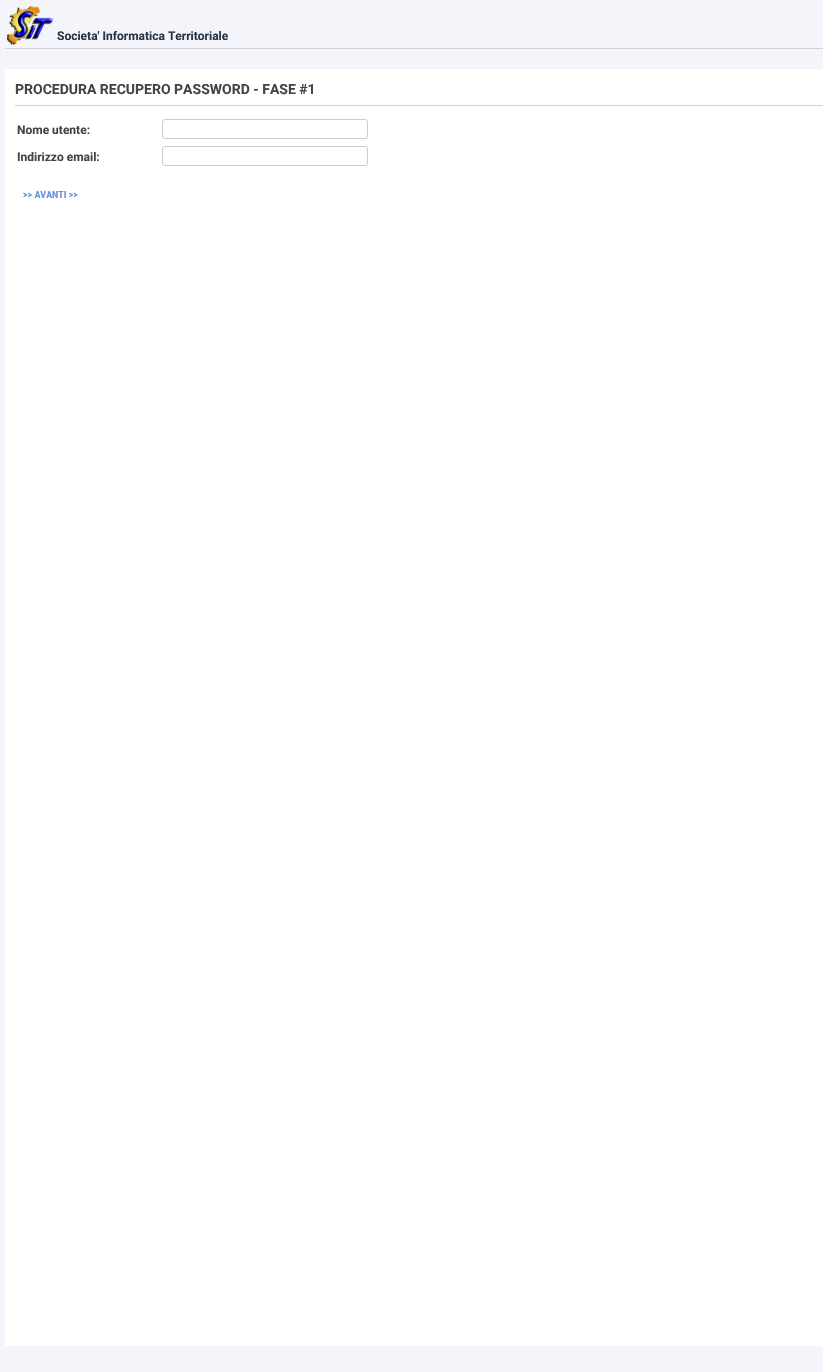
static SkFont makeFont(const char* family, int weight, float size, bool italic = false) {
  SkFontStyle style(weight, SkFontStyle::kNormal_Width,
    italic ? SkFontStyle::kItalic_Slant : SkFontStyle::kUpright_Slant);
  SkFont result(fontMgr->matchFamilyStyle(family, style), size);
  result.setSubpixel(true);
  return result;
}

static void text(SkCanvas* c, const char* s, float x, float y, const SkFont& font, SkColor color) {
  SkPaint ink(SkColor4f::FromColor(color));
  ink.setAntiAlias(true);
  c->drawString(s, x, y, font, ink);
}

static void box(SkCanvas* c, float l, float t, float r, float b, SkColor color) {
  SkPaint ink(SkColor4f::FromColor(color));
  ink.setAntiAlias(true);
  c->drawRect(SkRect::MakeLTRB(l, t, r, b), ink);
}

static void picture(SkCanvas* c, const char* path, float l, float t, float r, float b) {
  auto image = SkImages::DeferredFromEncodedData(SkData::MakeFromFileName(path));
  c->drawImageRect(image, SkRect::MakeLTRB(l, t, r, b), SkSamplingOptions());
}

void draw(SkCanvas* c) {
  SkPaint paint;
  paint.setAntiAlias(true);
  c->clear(0xfff3f5fa);
  box(c, 5, 48, 823, 49, 0xffd4d1d1);
  picture(c, "img_01.png", 7, 5, 54, 45);
  SkFont face1 = makeFont("Roboto", 700, 12);
  text(c, "Societa' Informatica Territoriale", 57, 40, face1, 0xff283544);
  box(c, 5, 69, 823, 1346, 0xffffffff);
  box(c, 15, 105, 823, 106, 0xffd4d1d1);
  SkFont face2 = makeFont("Roboto", 700, 14);
  text(c, "PROCEDURA RECUPERO PASSWORD - FASE #1", 15, 94, face2, 0xff444444);
  text(c, "Nome utente:", 17, 134, face1, 0xff444444);
  paint.setStyle(SkPaint::kStroke_Style);
  paint.setStrokeWidth(1);
  paint.setColor(0xffcccccc);
  c->drawRoundRect(SkRect::MakeLTRB(162.5f, 119.5f, 367.5f, 138.5f), 2.5f, 2.5f, paint);
  text(c, "Indirizzo email:", 17, 161, face1, 0xff444444);
  c->drawRoundRect(SkRect::MakeLTRB(162.5f, 146.5f, 367.5f, 165.5f), 2.5f, 2.5f, paint);
  SkFont face3 = makeFont("Roboto Condensed", 700, 10);
  text(c, ">> AVANTI >>", 23, 198, face3, 0xff6a90da);
}
